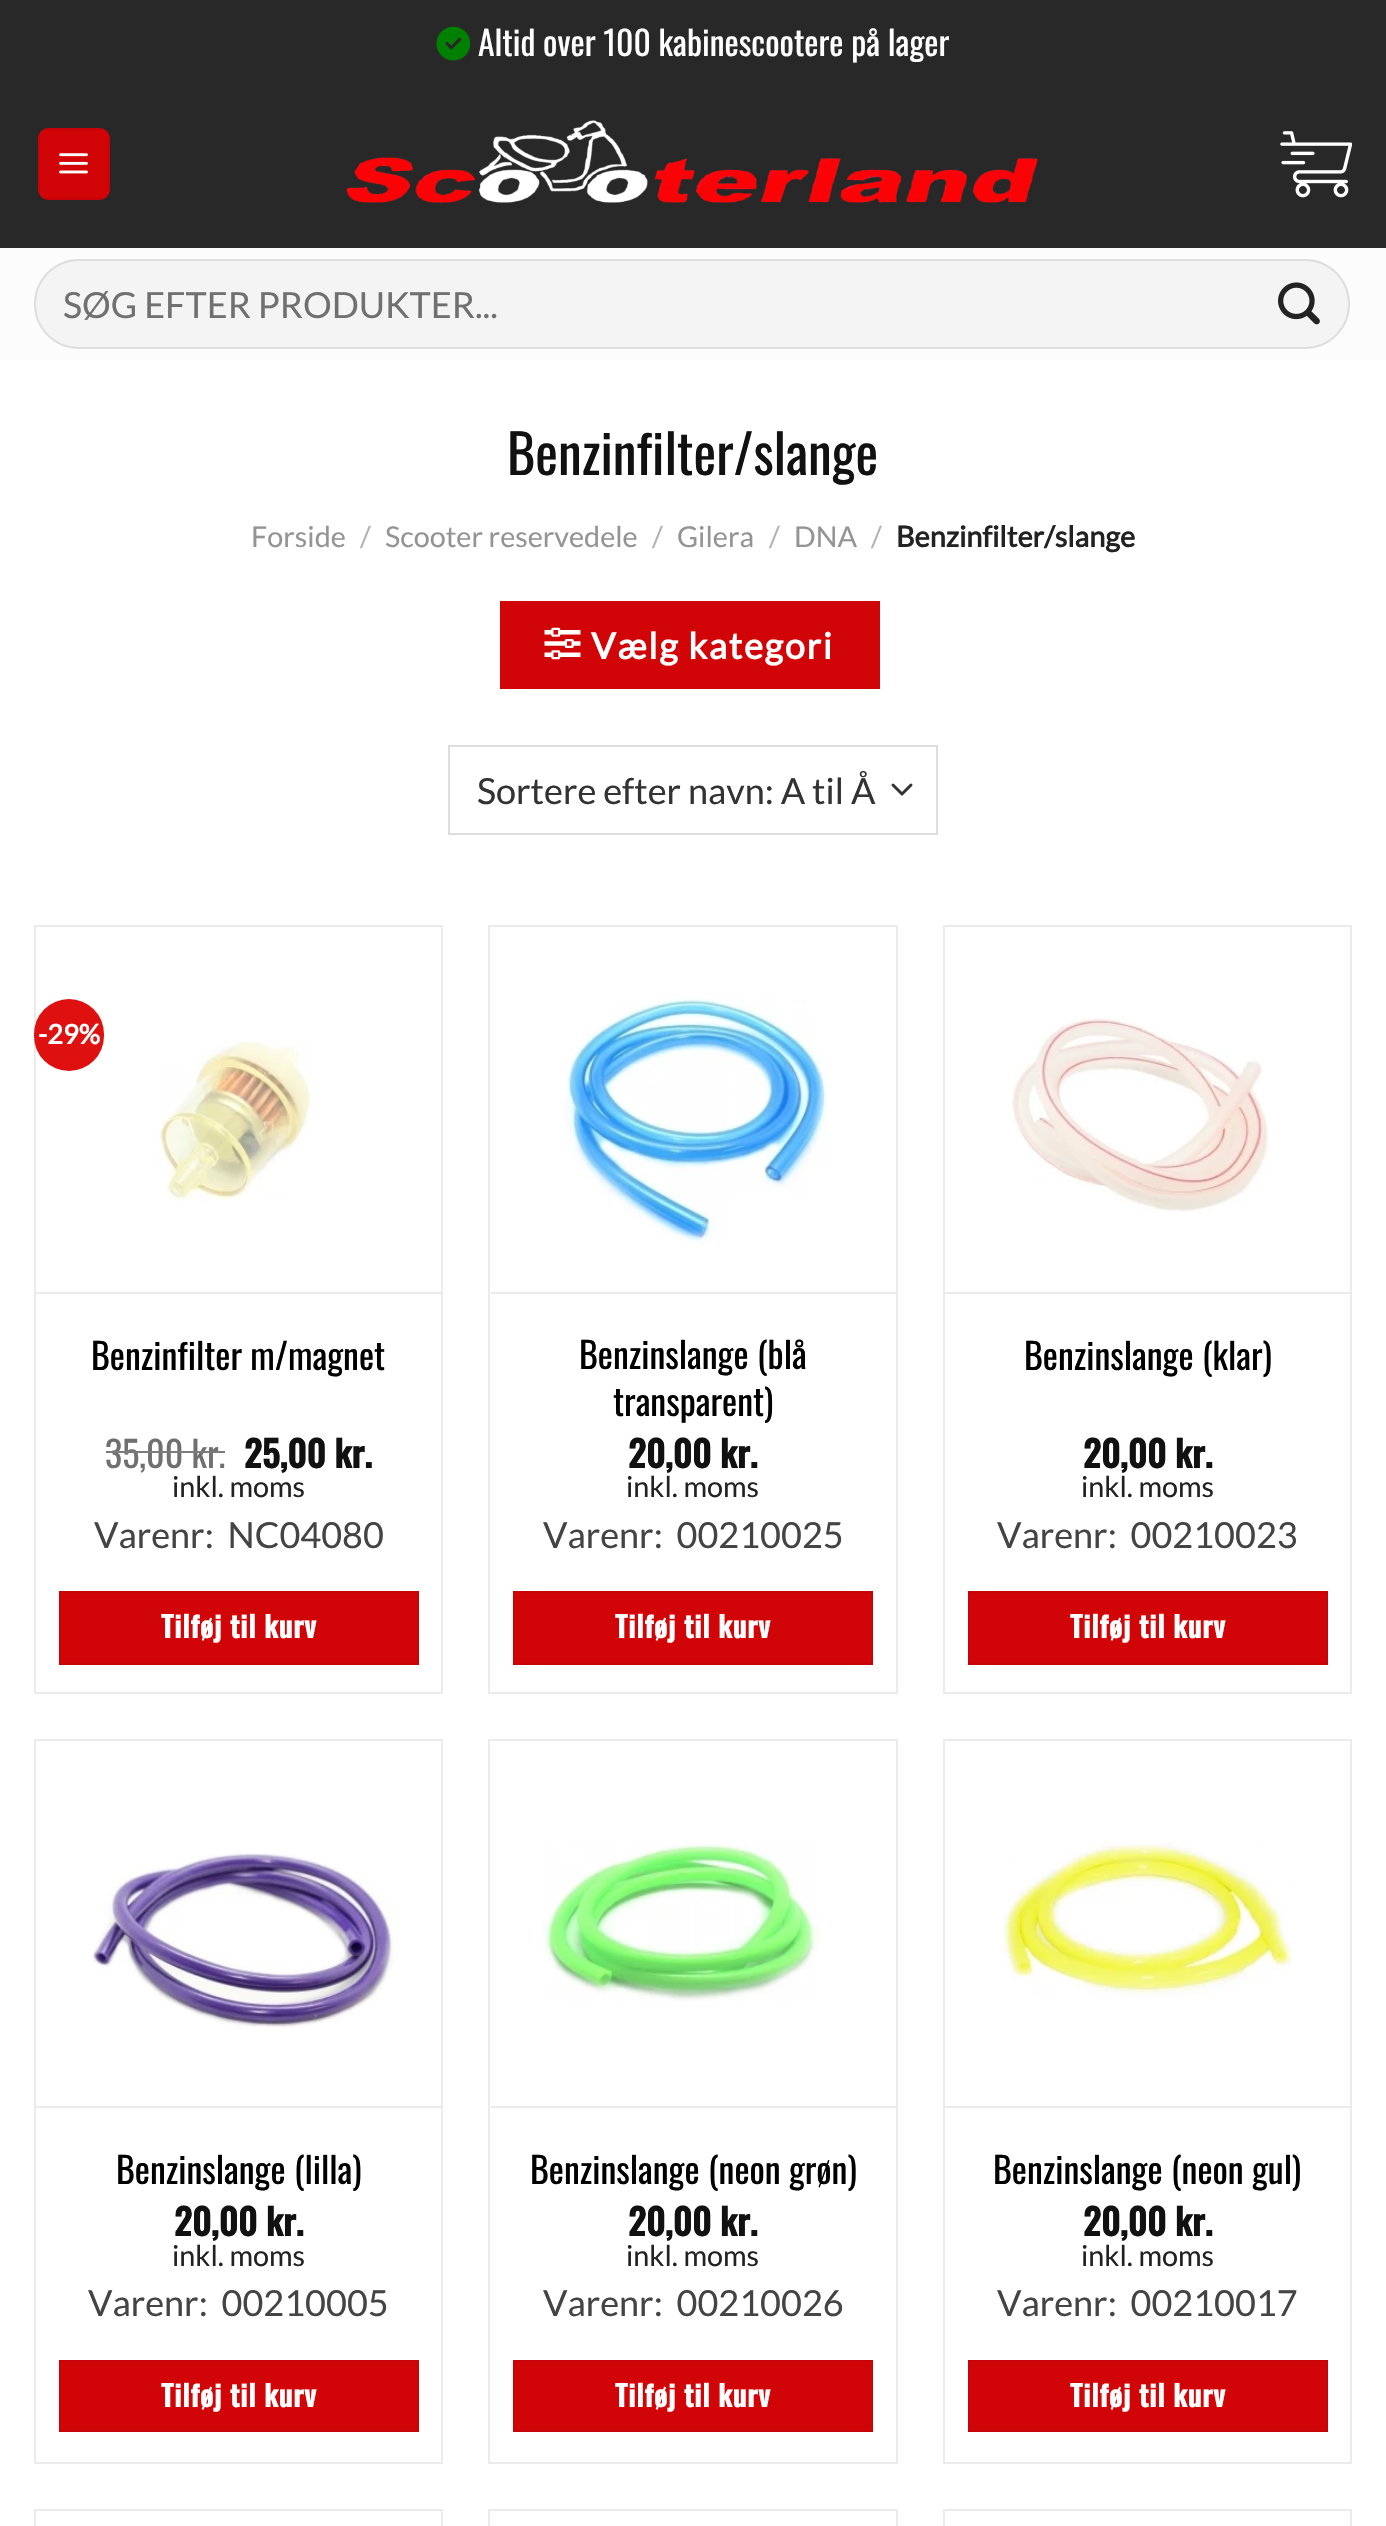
static SkFont makeFont(const char* family, int weight, float size, bool italic = false) {
  SkFontStyle style(weight, SkFontStyle::kNormal_Width,
    italic ? SkFontStyle::kItalic_Slant : SkFontStyle::kUpright_Slant);
  SkFont result(fontMgr->matchFamilyStyle(family, style), size);
  result.setSubpixel(true);
  return result;
}

static void text(SkCanvas* c, const char* s, float x, float y, const SkFont& font, SkColor color) {
  SkPaint ink(SkColor4f::FromColor(color));
  ink.setAntiAlias(true);
  c->drawString(s, x, y, font, ink);
}

static void spacedText(SkCanvas* c, const char* s, float x, float y, const SkFont& font, const SkPaint& ink, float letter, float word) {
  std::vector<SkGlyphID> glyphs(font.countText(s, strlen(s), SkTextEncoding::kUTF8));
  std::vector<float> xs(glyphs.size());
  font.textToGlyphs(s, strlen(s), SkTextEncoding::kUTF8, glyphs);
  font.getXPos(glyphs, xs, x);
  float extra = 0;
  for (size_t i = 0; i < glyphs.size(); i++) {
    xs[i] += extra;
    extra += letter + word * (glyphs[i] == font.unicharToGlyph(' '));
  }
  c->drawTextBlob(SkTextBlob::MakeFromPosHGlyphs(glyphs, xs, y, font), 0, 0, ink);
}

static void box(SkCanvas* c, float l, float t, float r, float b, SkColor color) {
  SkPaint ink(SkColor4f::FromColor(color));
  ink.setAntiAlias(true);
  c->drawRect(SkRect::MakeLTRB(l, t, r, b), ink);
}

static void roundBox(SkCanvas* c, float l, float t, float r, float b, float radius, SkColor color) {
  SkPaint ink(SkColor4f::FromColor(color));
  ink.setAntiAlias(true);
  c->drawRoundRect(SkRect::MakeLTRB(l, t, r, b), radius, radius, ink);
}

static void picture(SkCanvas* c, const char* path, float l, float t, float r, float b) {
  auto image = SkImages::DeferredFromEncodedData(SkData::MakeFromFileName(path));
  c->drawImageRect(image, SkRect::MakeLTRB(l, t, r, b), SkSamplingOptions());
}

void draw(SkCanvas* c) {
  SkPaint paint;
  paint.setAntiAlias(true);
  c->clear(0xffffffff);
  box(c, 0, 0, 1386, 248, 0xff282828);
  picture(c, "img_01.png", 436, 26, 471, 61);
  SkFont face1 = makeFont("Oswald", 400, 33.75f);
  text(c, "Altid over 100 kabinescootere på lager", 478, 56, face1, 0xffffffff);
  roundBox(c, 38, 128, 110, 200, 11, 0xffd10407);
  paint.setStyle(SkPaint::kStroke_Style);
  paint.setStrokeWidth(2);
  paint.setColor(0x0d000000);
  c->drawRect(SkRect::MakeLTRB(39, 129, 109, 199), paint);
  picture(c, "img_02.png", 59, 153, 88, 174);
  picture(c, "img_03.png", 346, 120, 1038, 204);
  picture(c, "img_04.png", 1280, 131, 1352, 198);
  box(c, 0, 248, 1386, 360, 0xfffcfcfc);
  roundBox(c, 34, 259, 1350, 349, 45, 0xfff4f4f4);
  paint.setColor(0x17000000);
  c->drawRoundRect(SkRect::MakeLTRB(35, 260, 1349, 348), 44, 44, paint);
  SkFont face2 = makeFont("Lato", 400, 36);
  text(c, "SØG EFTER PRODUKTER...", 63, 318, face2, 0xff707070);
  picture(c, "img_05.png", 1278, 282, 1320, 325);
  SkFont face3 = makeFont("Oswald", 400, 54);
  text(c, "Benzinfilter/slange", 507, 475, face3, 0xff111111);
  SkFont face4 = makeFont("Lato", 400, 28.75f);
  text(c, "Forside", 251, 547, face4, 0xff949494);
  text(c, "/", 360, 547, face4, 0xffb2b2b2);
  text(c, "Scooter reservedele", 385, 547, face4, 0xff949494);
  text(c, "/", 652, 547, face4, 0xffb2b2b2);
  text(c, "Gilera", 677, 547, face4, 0xff949494);
  text(c, "/", 769, 547, face4, 0xffb2b2b2);
  text(c, "DNA", 794, 547, face4, 0xff949494);
  text(c, "/", 871, 547, face4, 0xffb2b2b2);
  SkFont face5 = makeFont("Lato", 700, 28.75f);
  text(c, "Benzinfilter/slange", 896, 547, face5, 0xff222222);
  box(c, 500, 601, 880, 689, 0xffd10407);
  picture(c, "img_06.png", 544, 627, 581, 660);
  SkFont face6 = makeFont("Lato", 700, 36);
  paint.setStyle(SkPaint::kFill_Style);
  paint.setColor(0xffffffff);
  spacedText(c, "Vælg kategori", 591, 659, face6, paint, 1.75f, 0);
  paint.setStyle(SkPaint::kStroke_Style);
  paint.setStrokeWidth(3);
  paint.setStrokeCap(SkPaint::kRound_Cap);
  paint.setStrokeJoin(SkPaint::kRound_Join);
  paint.setColor(0xff333333);
  c->drawPath(SkPathBuilder().moveTo(893, 785).lineTo(902, 794).lineTo(911, 785).detach(), paint);
  paint.setStrokeWidth(2);
  paint.setStrokeCap(SkPaint::kButt_Cap);
  paint.setStrokeJoin(SkPaint::kMiter_Join);
  paint.setColor(0xffdddddd);
  c->drawRect(SkRect::MakeLTRB(449, 746, 937, 834), paint);
  text(c, "Sortere efter navn: A til Å", 477, 804, face2, 0xff333333);
  paint.setColor(0xffebebeb);
  c->drawRect(SkRect::MakeLTRB(35, 926, 442, 1693), paint);
  roundBox(c, 34, 999, 104, 1071, 35, 0xffde1010);
  SkFont face7 = makeFont("Lato", 700, 27);
  text(c, "-29%", 38, 1044, face7, 0xffffffff);
  box(c, 36, 1292, 441, 1294, 0xffebebeb);
  picture(c, "img_07.png", 157, 1041, 312, 1201);
  SkFont face8 = makeFont("Oswald", 400, 36);
  text(c, "Benzinfilter m/magnet", 91, 1370, face8, 0xff000000);
  text(c, "35,00 kr.", 105, 1468, face8, 0xff707070);
  box(c, 106, 1451, 225, 1453, 0xff7b7b7b);
  SkFont face9 = makeFont("Oswald", 700, 36);
  text(c, "25,00 kr.", 244, 1468, face9, 0xff111111);
  text(c, "inkl. moms", 172, 1497, face4, 0xff222222);
  text(c, "Varenr:  NC04080", 94, 1548, face2, 0xff444444);
  paint.setStyle(SkPaint::kFill_Style);
  paint.setColor(0xffd10407);
  c->drawRect(SkRect::MakeLTRB(60, 1592, 418, 1664), paint);
  paint.setStyle(SkPaint::kStroke_Style);
  paint.setColor(0xffc70407);
  c->drawRect(SkRect::MakeLTRB(60, 1592, 418, 1664), paint);
  SkFont face10 = makeFont("Oswald", 700, 28.75f);
  paint.setStyle(SkPaint::kFill_Style);
  paint.setColor(0xffffffff);
  spacedText(c, "Tilføj til kurv", 161, 1638, face10, paint, 0.9f, 0);
  paint.setStyle(SkPaint::kStroke_Style);
  paint.setColor(0xffebebeb);
  c->drawRect(SkRect::MakeLTRB(489, 926, 897, 1693), paint);
  box(c, 491, 1292, 896, 1294, 0xffebebeb);
  picture(c, "img_08.png", 564, 998, 828, 1245);
  text(c, "Benzinslange (blå", 579, 1369, face8, 0xff000000);
  text(c, "transparent)", 613, 1416, face8, 0xff000000);
  text(c, "20,00 kr.", 628, 1468, face9, 0xff111111);
  text(c, "inkl. moms", 626, 1497, face4, 0xff222222);
  text(c, "Varenr:  00210025", 543, 1548, face2, 0xff444444);
  paint.setStyle(SkPaint::kFill_Style);
  paint.setColor(0xffd10407);
  c->drawRect(SkRect::MakeLTRB(514, 1592, 872, 1664), paint);
  paint.setStyle(SkPaint::kStroke_Style);
  paint.setColor(0xffc70407);
  c->drawRect(SkRect::MakeLTRB(514, 1592, 872, 1664), paint);
  paint.setStyle(SkPaint::kFill_Style);
  paint.setColor(0xffffffff);
  spacedText(c, "Tilføj til kurv", 615, 1638, face10, paint, 0.9f, 0);
  paint.setStyle(SkPaint::kStroke_Style);
  paint.setColor(0xffebebeb);
  c->drawRect(SkRect::MakeLTRB(944, 926, 1351, 1693), paint);
  box(c, 945, 1292, 1350, 1294, 0xffebebeb);
  picture(c, "img_09.png", 1012, 1018, 1269, 1214);
  text(c, "Benzinslange (klar)", 1024, 1370, face8, 0xff000000);
  text(c, "20,00 kr.", 1083, 1468, face9, 0xff111111);
  text(c, "inkl. moms", 1081, 1497, face4, 0xff222222);
  text(c, "Varenr:  00210023", 997, 1548, face2, 0xff444444);
  paint.setStyle(SkPaint::kFill_Style);
  paint.setColor(0xffd10407);
  c->drawRect(SkRect::MakeLTRB(969, 1592, 1327, 1664), paint);
  paint.setStyle(SkPaint::kStroke_Style);
  paint.setColor(0xffc70407);
  c->drawRect(SkRect::MakeLTRB(969, 1592, 1327, 1664), paint);
  paint.setStyle(SkPaint::kFill_Style);
  paint.setColor(0xffffffff);
  spacedText(c, "Tilføj til kurv", 1070, 1638, face10, paint, 0.9f, 0);
  paint.setStyle(SkPaint::kStroke_Style);
  paint.setColor(0xffebebeb);
  c->drawRect(SkRect::MakeLTRB(35, 1740, 442, 2463), paint);
  box(c, 36, 2106, 441, 2108, 0xffebebeb);
  picture(c, "img_10.png", 90, 1853, 399, 2028);
  text(c, "Benzinslange (lilla)", 116, 2184, face8, 0xff000000);
  text(c, "20,00 kr.", 174, 2236, face9, 0xff111111);
  text(c, "inkl. moms", 172, 2266, face4, 0xff222222);
  text(c, "Varenr:  00210005", 88, 2316, face2, 0xff444444);
  paint.setStyle(SkPaint::kFill_Style);
  paint.setColor(0xffd10407);
  c->drawRect(SkRect::MakeLTRB(60, 2361, 418, 2431), paint);
  paint.setStyle(SkPaint::kStroke_Style);
  paint.setColor(0xffc70407);
  c->drawRect(SkRect::MakeLTRB(60, 2361, 418, 2431), paint);
  paint.setStyle(SkPaint::kFill_Style);
  paint.setColor(0xffffffff);
  spacedText(c, "Tilføj til kurv", 161, 2407, face10, paint, 0.9f, 0);
  paint.setStyle(SkPaint::kStroke_Style);
  paint.setColor(0xffebebeb);
  c->drawRect(SkRect::MakeLTRB(489, 1740, 897, 2463), paint);
  box(c, 491, 2106, 896, 2108, 0xffebebeb);
  picture(c, "img_11.png", 542, 1844, 820, 2002);
  text(c, "Benzinslange (neon grøn)", 530, 2184, face8, 0xff000000);
  text(c, "20,00 kr.", 628, 2236, face9, 0xff111111);
  text(c, "inkl. moms", 626, 2266, face4, 0xff222222);
  text(c, "Varenr:  00210026", 543, 2316, face2, 0xff444444);
  paint.setStyle(SkPaint::kFill_Style);
  paint.setColor(0xffd10407);
  c->drawRect(SkRect::MakeLTRB(514, 2361, 872, 2431), paint);
  paint.setStyle(SkPaint::kStroke_Style);
  paint.setColor(0xffc70407);
  c->drawRect(SkRect::MakeLTRB(514, 2361, 872, 2431), paint);
  paint.setStyle(SkPaint::kFill_Style);
  paint.setColor(0xffffffff);
  spacedText(c, "Tilføj til kurv", 615, 2407, face10, paint, 0.9f, 0);
  paint.setStyle(SkPaint::kStroke_Style);
  paint.setColor(0xffebebeb);
  c->drawRect(SkRect::MakeLTRB(944, 1740, 1351, 2463), paint);
  box(c, 945, 2106, 1350, 2108, 0xffebebeb);
  picture(c, "img_12.png", 1001, 1842, 1293, 1997);
  text(c, "Benzinslange (neon gul)", 993, 2184, face8, 0xff000000);
  text(c, "20,00 kr.", 1083, 2236, face9, 0xff111111);
  text(c, "inkl. moms", 1081, 2266, face4, 0xff222222);
  text(c, "Varenr:  00210017", 997, 2316, face2, 0xff444444);
  paint.setStyle(SkPaint::kFill_Style);
  paint.setColor(0xffd10407);
  c->drawRect(SkRect::MakeLTRB(969, 2361, 1327, 2431), paint);
  paint.setStyle(SkPaint::kStroke_Style);
  paint.setColor(0xffc70407);
  c->drawRect(SkRect::MakeLTRB(969, 2361, 1327, 2431), paint);
  paint.setStyle(SkPaint::kFill_Style);
  paint.setColor(0xffffffff);
  spacedText(c, "Tilføj til kurv", 1070, 2407, face10, paint, 0.9f, 0);
  paint.setStyle(SkPaint::kStroke_Style);
  paint.setColor(0xffebebeb);
  c->drawRect(SkRect::MakeLTRB(35, 2510, 442, 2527), paint);
  c->drawRect(SkRect::MakeLTRB(489, 2510, 897, 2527), paint);
  c->drawRect(SkRect::MakeLTRB(944, 2510, 1351, 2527), paint);
}
